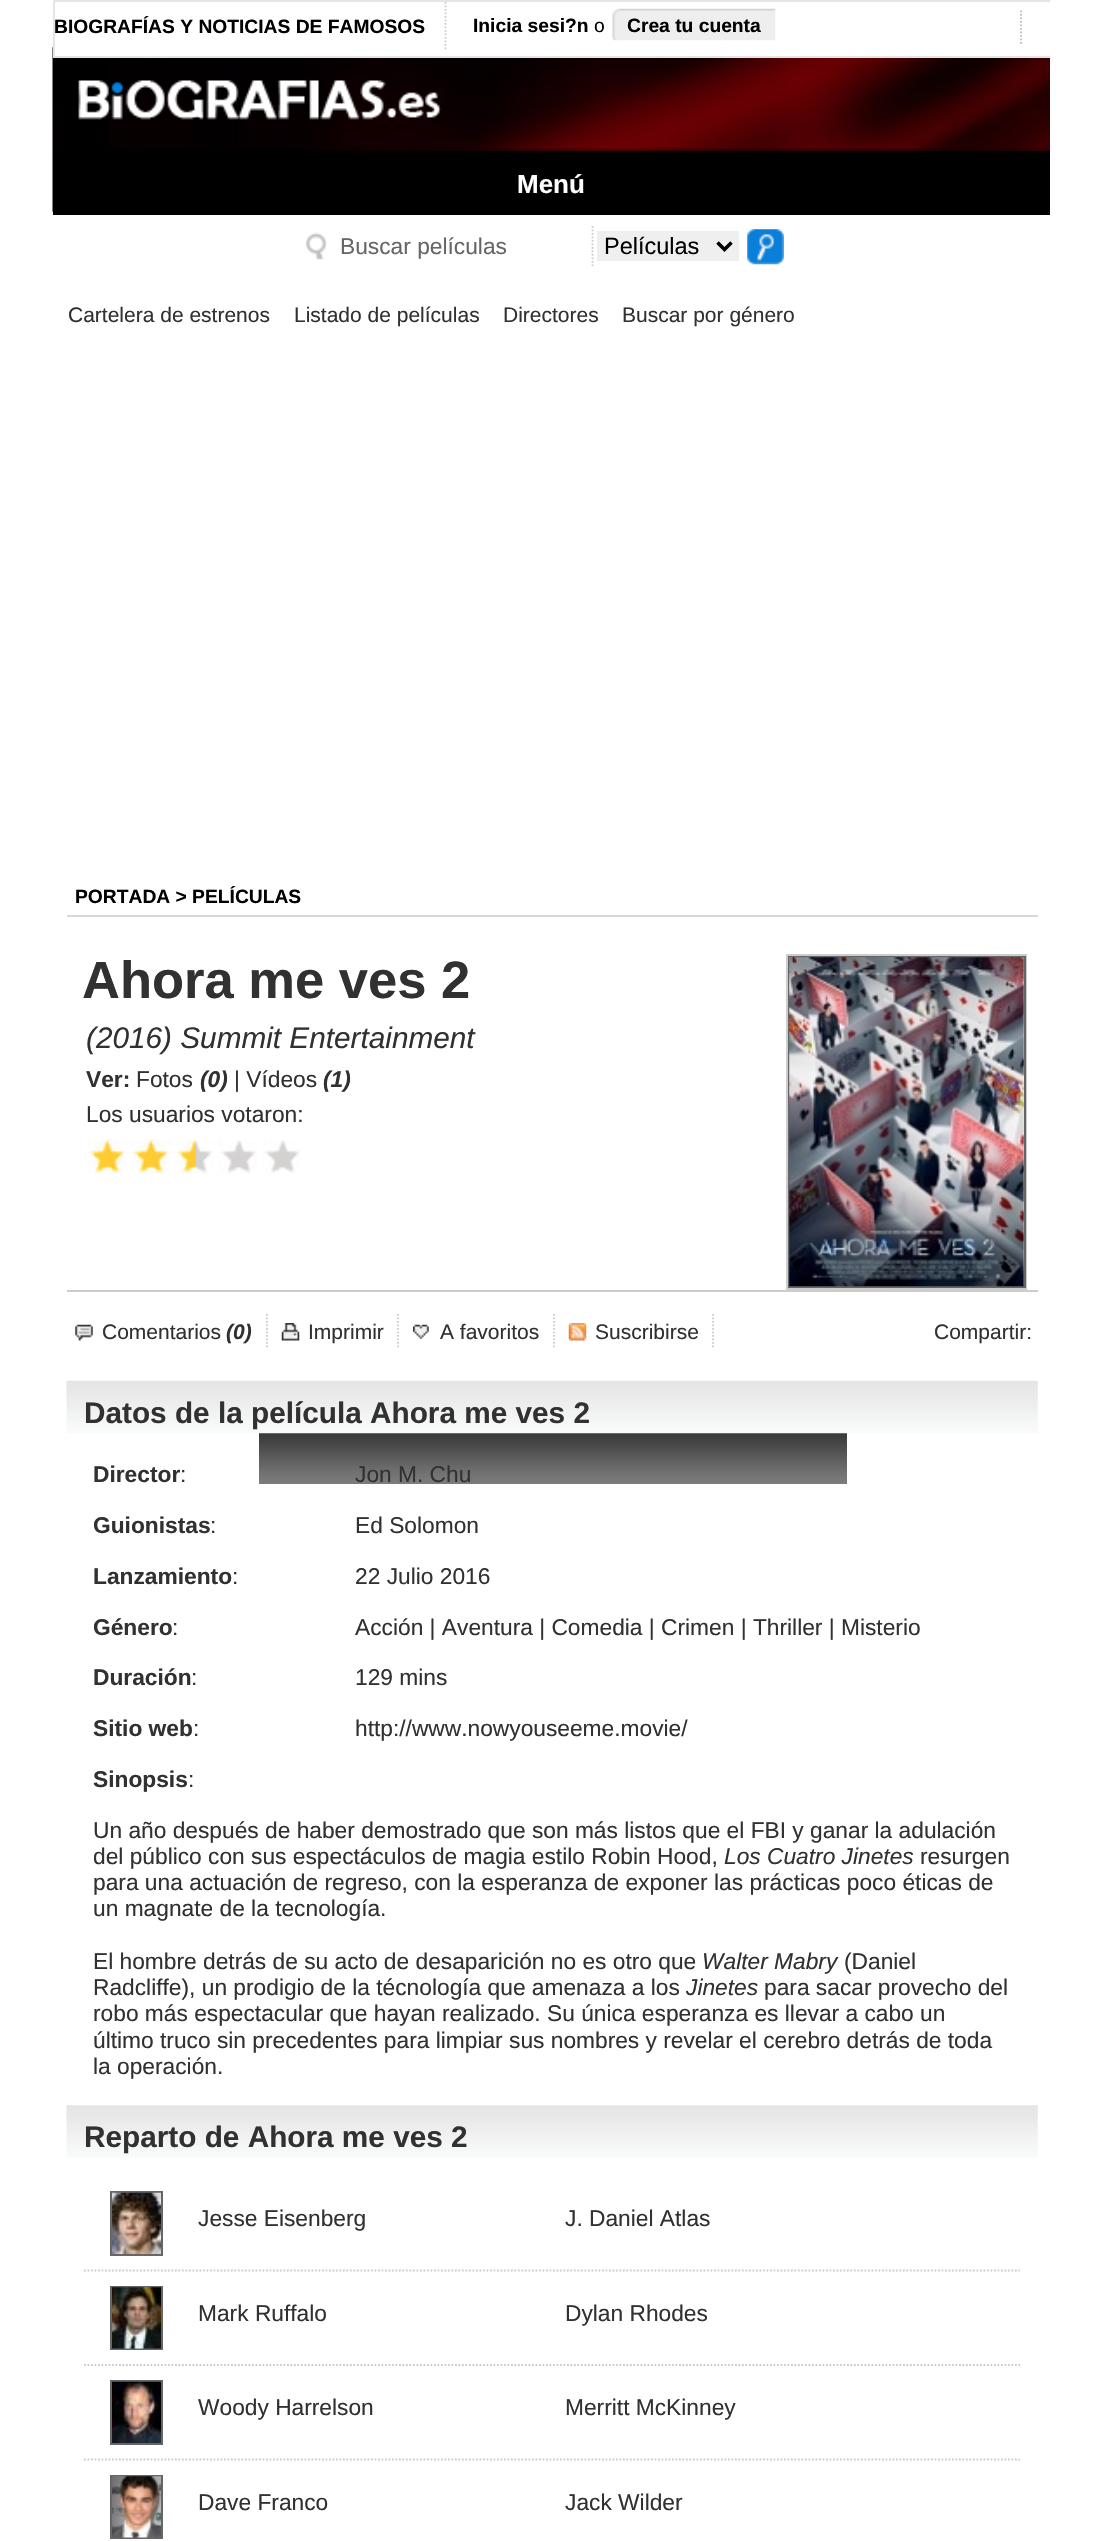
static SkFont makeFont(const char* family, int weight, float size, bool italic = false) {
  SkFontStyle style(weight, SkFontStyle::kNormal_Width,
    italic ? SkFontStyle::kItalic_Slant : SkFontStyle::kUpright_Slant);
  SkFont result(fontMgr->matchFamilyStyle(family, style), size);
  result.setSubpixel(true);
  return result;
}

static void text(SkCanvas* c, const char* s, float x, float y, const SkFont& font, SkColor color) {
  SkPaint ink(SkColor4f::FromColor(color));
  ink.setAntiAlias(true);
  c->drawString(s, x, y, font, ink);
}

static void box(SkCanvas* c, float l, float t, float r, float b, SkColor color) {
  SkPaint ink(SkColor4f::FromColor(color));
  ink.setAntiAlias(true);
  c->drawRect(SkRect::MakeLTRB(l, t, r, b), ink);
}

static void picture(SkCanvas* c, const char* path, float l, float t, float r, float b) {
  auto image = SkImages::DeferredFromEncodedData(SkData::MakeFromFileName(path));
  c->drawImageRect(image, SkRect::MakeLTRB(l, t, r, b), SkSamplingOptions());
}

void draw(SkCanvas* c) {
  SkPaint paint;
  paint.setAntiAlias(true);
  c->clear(0xffffffff);
  picture(c, "img_01.png", 52, 47, 1050, 212);
  box(c, 55, 47, 1050, 56, 0xffffffff);
  c->save();
  c->clipRect(SkRect::MakeLTRB(53, 0, 1050, 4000));
  paint.setStyle(SkPaint::kStroke_Style);
  paint.setStrokeWidth(2);
  paint.setColor(0xffe5e5e5);
  c->drawRect(SkRect::MakeLTRB(54, 1, 1051, 57), paint);
  c->restore();
  paint.setStrokeWidth(1.8f);
  paint.setColor(0xffcccccc);
  paint.setPathEffect(SkDashPathEffect::Make({{1.75f, 1.75f}}, 0));
  c->drawPath(SkPathBuilder().moveTo(445.5f, 2).lineTo(445.5f, 51).detach(), paint);
  paint.setPathEffect(nullptr);
  SkFont face1 = makeFont("Liberation Sans", 700, 19.25f);
  text(c, "BIOGRAFÍAS Y NOTICIAS DE FAMOSOS", 54, 33, face1, 0xff000000);
  text(c, "Inicia sesi?n", 473, 32, face1, 0xff000000);
  SkFont face2 = makeFont("Liberation Sans", 400, 19.25f);
  text(c, "o", 594, 32, face2, 0xff000000);
  picture(c, "img_02.png", 612, 8, 776, 41);
  text(c, "Crea tu cuenta", 627, 32, face1, 0xff000000);
  paint.setColor(0xffbcbcbc);
  paint.setPathEffect(SkDashPathEffect::Make({{1.75f, 1.75f}}, 0));
  c->drawPath(SkPathBuilder().moveTo(1021, 10.5f).lineTo(1021, 44).detach(), paint);
  paint.setPathEffect(nullptr);
  picture(c, "img_03.png", 78, 80, 442, 120);
  box(c, 53, 151, 1050, 215, 0xff000000);
  SkFont face3 = makeFont("Liberation Sans", 700, 26);
  text(c, "Menú", 517, 193, face3, 0xffffffff);
  picture(c, "img_04.png", 306, 232, 327, 260);
  paint.setColor(0xffcccccc);
  paint.setPathEffect(SkDashPathEffect::Make({{1.75f, 1.75f}}, 0));
  c->drawPath(SkPathBuilder().moveTo(592.5f, 226).lineTo(592.5f, 266).detach(), paint);
  paint.setPathEffect(nullptr);
  SkFont face4 = makeFont("Liberation Sans", 400, 22.75f);
  text(c, "Buscar películas", 340, 254, face4, 0xff666666);
  box(c, 597, 231, 739, 261, 0xffefefef);
  paint.setStrokeWidth(3.5f);
  paint.setColor(0xff000000);
  c->drawPath(SkPathBuilder().moveTo(717.5f, 242.5f).lineTo(724.5f, 249.5f).lineTo(731.5f, 242.5f).detach(), paint);
  SkFont face5 = makeFont("Liberation Sans", 400, 23.5f);
  text(c, "Películas", 604, 254, face5, 0xff000000);
  picture(c, "img_05.png", 747, 229, 784, 265);
  SkFont face6 = makeFont("Liberation Sans", 400, 21);
  text(c, "Cartelera de estrenos", 68, 322, face6, 0xff313131);
  text(c, "Listado de películas", 294, 322, face6, 0xff313131);
  text(c, "Directores", 503, 322, face6, 0xff313131);
  text(c, "Buscar por género", 622, 322, face6, 0xff313131);
  box(c, 67, 915, 1038, 917, 0xffd8d8d8);
  text(c, "PORTADA > PELÍCULAS", 75, 903, face1, 0xff000000);
  box(c, 67, 1290, 1038, 1292, 0xffcccccc);
  SkFont face7 = makeFont("Liberation Sans", 700, 52.5f);
  text(c, "Ahora me ves 2", 82, 998, face7, 0xff313131);
  paint.setStrokeWidth(2);
  paint.setColor(0xffcccccc);
  c->drawRect(SkRect::MakeLTRB(787, 955, 1026, 1289), paint);
  paint.setColor(0xff666666);
  c->drawRect(SkRect::MakeLTRB(789, 957, 1025, 1287), paint);
  picture(c, "img_06.png", 789, 957, 1024, 1287);
  SkFont face8 = makeFont("Liberation Sans", 400, 29.75f, true);
  text(c, "(2016) Summit Entertainment", 86, 1048, face8, 0xff313131);
  SkFont face9 = makeFont("Liberation Sans", 700, 22.75f);
  text(c, "Ver:", 86, 1087, face9, 0xff313131);
  text(c, "Fotos", 136, 1087, face4, 0xff313131);
  SkFont face10 = makeFont("Liberation Sans", 700, 22.75f, true);
  text(c, "(0)", 200, 1087, face10, 0xff313131);
  text(c, "| Vídeos", 234, 1087, face4, 0xff313131);
  text(c, "(1)", 323, 1087, face10, 0xff313131);
  text(c, "Los usuarios votaron:", 86, 1122, face4, 0xff313131);
  picture(c, "img_07.png", 88, 1140, 300, 1174);
  picture(c, "img_08.png", 90, 1139, 196, 1175);
  picture(c, "img_09.png", 75, 1324, 93, 1341);
  paint.setStrokeWidth(1.8f);
  paint.setColor(0xffcccccc);
  paint.setPathEffect(SkDashPathEffect::Make({{1.75f, 1.75f}}, 0));
  c->drawPath(SkPathBuilder().moveTo(267, 1314).lineTo(267, 1349).detach(), paint);
  paint.setPathEffect(nullptr);
  text(c, "Comentarios", 102, 1339, face6, 0xff313131);
  SkFont face11 = makeFont("Liberation Sans", 700, 21, true);
  text(c, "(0)", 226, 1339, face11, 0xff313131);
  picture(c, "img_10.png", 281, 1323, 300, 1341);
  paint.setPathEffect(SkDashPathEffect::Make({{1.75f, 1.75f}}, 0));
  c->drawPath(SkPathBuilder().moveTo(398, 1314).lineTo(398, 1349).detach(), paint);
  paint.setPathEffect(nullptr);
  text(c, "Imprimir", 308, 1339, face6, 0xff313131);
  picture(c, "img_11.png", 413, 1324, 429, 1339);
  paint.setPathEffect(SkDashPathEffect::Make({{1.75f, 1.75f}}, 0));
  c->drawPath(SkPathBuilder().moveTo(554, 1314).lineTo(554, 1349).detach(), paint);
  paint.setPathEffect(nullptr);
  text(c, "A favoritos", 440, 1339, face6, 0xff313131);
  picture(c, "img_12.png", 568, 1323, 587, 1341);
  paint.setPathEffect(SkDashPathEffect::Make({{1.75f, 1.75f}}, 0));
  c->drawPath(SkPathBuilder().moveTo(713, 1314).lineTo(713, 1349).detach(), paint);
  paint.setPathEffect(nullptr);
  text(c, "Suscribirse", 595, 1339, face6, 0xff313131);
  text(c, "Compartir:", 934, 1339, face6, 0xff313131);
  picture(c, "img_19.png", 259, 1433, 847, 1484);
  picture(c, "img_13.png", 66, 1380, 1038, 1434);
  SkFont face12 = makeFont("Liberation Sans", 700, 29.75f);
  text(c, "Datos de la película Ahora me ves 2", 84, 1423, face12, 0xff313131);
  text(c, "Director", 93, 1482, face9, 0xff313131);
  text(c, ":", 180, 1482, face4, 0xff313131);
  text(c, "Jon M. Chu", 355, 1482, face4, 0xff313131);
  text(c, "Guionistas", 93, 1533, face9, 0xff313131);
  text(c, ":", 210, 1533, face4, 0xff313131);
  text(c, "Ed Solomon", 355, 1533, face4, 0xff313131);
  text(c, "Lanzamiento", 93, 1584, face9, 0xff313131);
  text(c, ":", 232, 1584, face4, 0xff313131);
  text(c, "22 Julio 2016", 355, 1584, face4, 0xff313131);
  text(c, "Género", 93, 1635, face9, 0xff313131);
  text(c, ":", 172, 1635, face4, 0xff313131);
  text(c, "Acción | Aventura | Comedia | Crimen | Thriller | Misterio", 355, 1635, face4, 0xff313131);
  text(c, "Duración", 93, 1685, face9, 0xff313131);
  text(c, ":", 191, 1685, face4, 0xff313131);
  text(c, "129 mins", 355, 1685, face4, 0xff313131);
  text(c, "Sitio web", 93, 1736, face9, 0xff313131);
  text(c, ":", 193, 1736, face4, 0xff313131);
  text(c, "http://www.nowyouseeme.movie/", 355, 1736, face4, 0xff313131);
  text(c, "Sinopsis", 93, 1787, face9, 0xff313131);
  text(c, ":", 188, 1787, face4, 0xff313131);
  text(c, "Un año después de haber demostrado que son más listos que el FBI y ganar la adulación", 93, 1838, face4, 0xff313131);
  text(c, "del público con sus espectáculos de magia estilo Robin Hood,", 93, 1864, face4, 0xff313131);
  SkFont face13 = makeFont("Liberation Sans", 400, 22.75f, true);
  text(c, "Los Cuatro Jinetes", 724, 1864, face13, 0xff313131);
  text(c, "resurgen", 920, 1864, face4, 0xff313131);
  text(c, "para una actuación de regreso, con la esperanza de exponer las prácticas poco éticas de", 93, 1890, face4, 0xff313131);
  text(c, "un magnate de la tecnología.", 93, 1916, face4, 0xff313131);
  text(c, "El hombre detrás de su acto de desaparición no es otro que", 93, 1969, face4, 0xff313131);
  text(c, "Walter Mabry", 702, 1969, face13, 0xff313131);
  text(c, "(Daniel", 844, 1969, face4, 0xff313131);
  text(c, "Radcliffe), un prodigio de la técnología que amenaza a los", 93, 1995, face4, 0xff313131);
  text(c, "Jinetes", 686, 1995, face13, 0xff313131);
  text(c, "para sacar provecho del", 764, 1995, face4, 0xff313131);
  text(c, "robo más espectacular que hayan realizado. Su única esperanza es llevar a cabo un", 93, 2021, face4, 0xff313131);
  text(c, "último truco sin precedentes para limpiar sus nombres y revelar el cerebro detrás de toda", 93, 2048, face4, 0xff313131);
  text(c, "la operación.", 93, 2074, face4, 0xff313131);
  picture(c, "img_14.png", 66, 2105, 1038, 2158);
  text(c, "Reparto de Ahora me ves 2", 84, 2147, face12, 0xff313131);
  paint.setPathEffect(SkDashPathEffect::Make({{1.75f, 1.75f}}, 0));
  c->drawPath(SkPathBuilder().moveTo(84, 2270.5f).lineTo(1020, 2270.5f).detach(), paint);
  paint.setPathEffect(nullptr);
  paint.setStrokeWidth(2);
  paint.setColor(0xff666666);
  c->drawRect(SkRect::MakeLTRB(111, 2192, 162, 2255), paint);
  picture(c, "img_15.png", 112, 2192, 161, 2254);
  text(c, "Jesse Eisenberg", 198, 2226, face4, 0xff313131);
  text(c, "J. Daniel Atlas", 565, 2226, face4, 0xff313131);
  paint.setStrokeWidth(1.8f);
  paint.setColor(0xffcccccc);
  paint.setPathEffect(SkDashPathEffect::Make({{1.75f, 1.75f}}, 0));
  c->drawPath(SkPathBuilder().moveTo(84, 2365).lineTo(1020, 2365).detach(), paint);
  paint.setPathEffect(nullptr);
  paint.setStrokeWidth(2);
  paint.setColor(0xff666666);
  c->drawRect(SkRect::MakeLTRB(111, 2287, 162, 2349), paint);
  picture(c, "img_16.png", 112, 2287, 161, 2349);
  text(c, "Mark Ruffalo", 198, 2321, face4, 0xff313131);
  text(c, "Dylan Rhodes", 565, 2321, face4, 0xff313131);
  paint.setStrokeWidth(1.8f);
  paint.setColor(0xffcccccc);
  paint.setPathEffect(SkDashPathEffect::Make({{1.75f, 1.75f}}, 0));
  c->drawPath(SkPathBuilder().moveTo(84, 2459.5f).lineTo(1020, 2459.5f).detach(), paint);
  paint.setPathEffect(nullptr);
  paint.setStrokeWidth(2);
  paint.setColor(0xff666666);
  c->drawRect(SkRect::MakeLTRB(111, 2381, 162, 2444), paint);
  picture(c, "img_17.png", 112, 2381, 161, 2443);
  text(c, "Woody Harrelson", 198, 2415, face4, 0xff313131);
  text(c, "Merritt McKinney", 565, 2415, face4, 0xff313131);
  c->drawRect(SkRect::MakeLTRB(111, 2476, 162, 2538), paint);
  picture(c, "img_18.png", 112, 2476, 161, 2538);
  text(c, "Dave Franco", 198, 2510, face4, 0xff313131);
  text(c, "Jack Wilder", 565, 2510, face4, 0xff313131);
}
